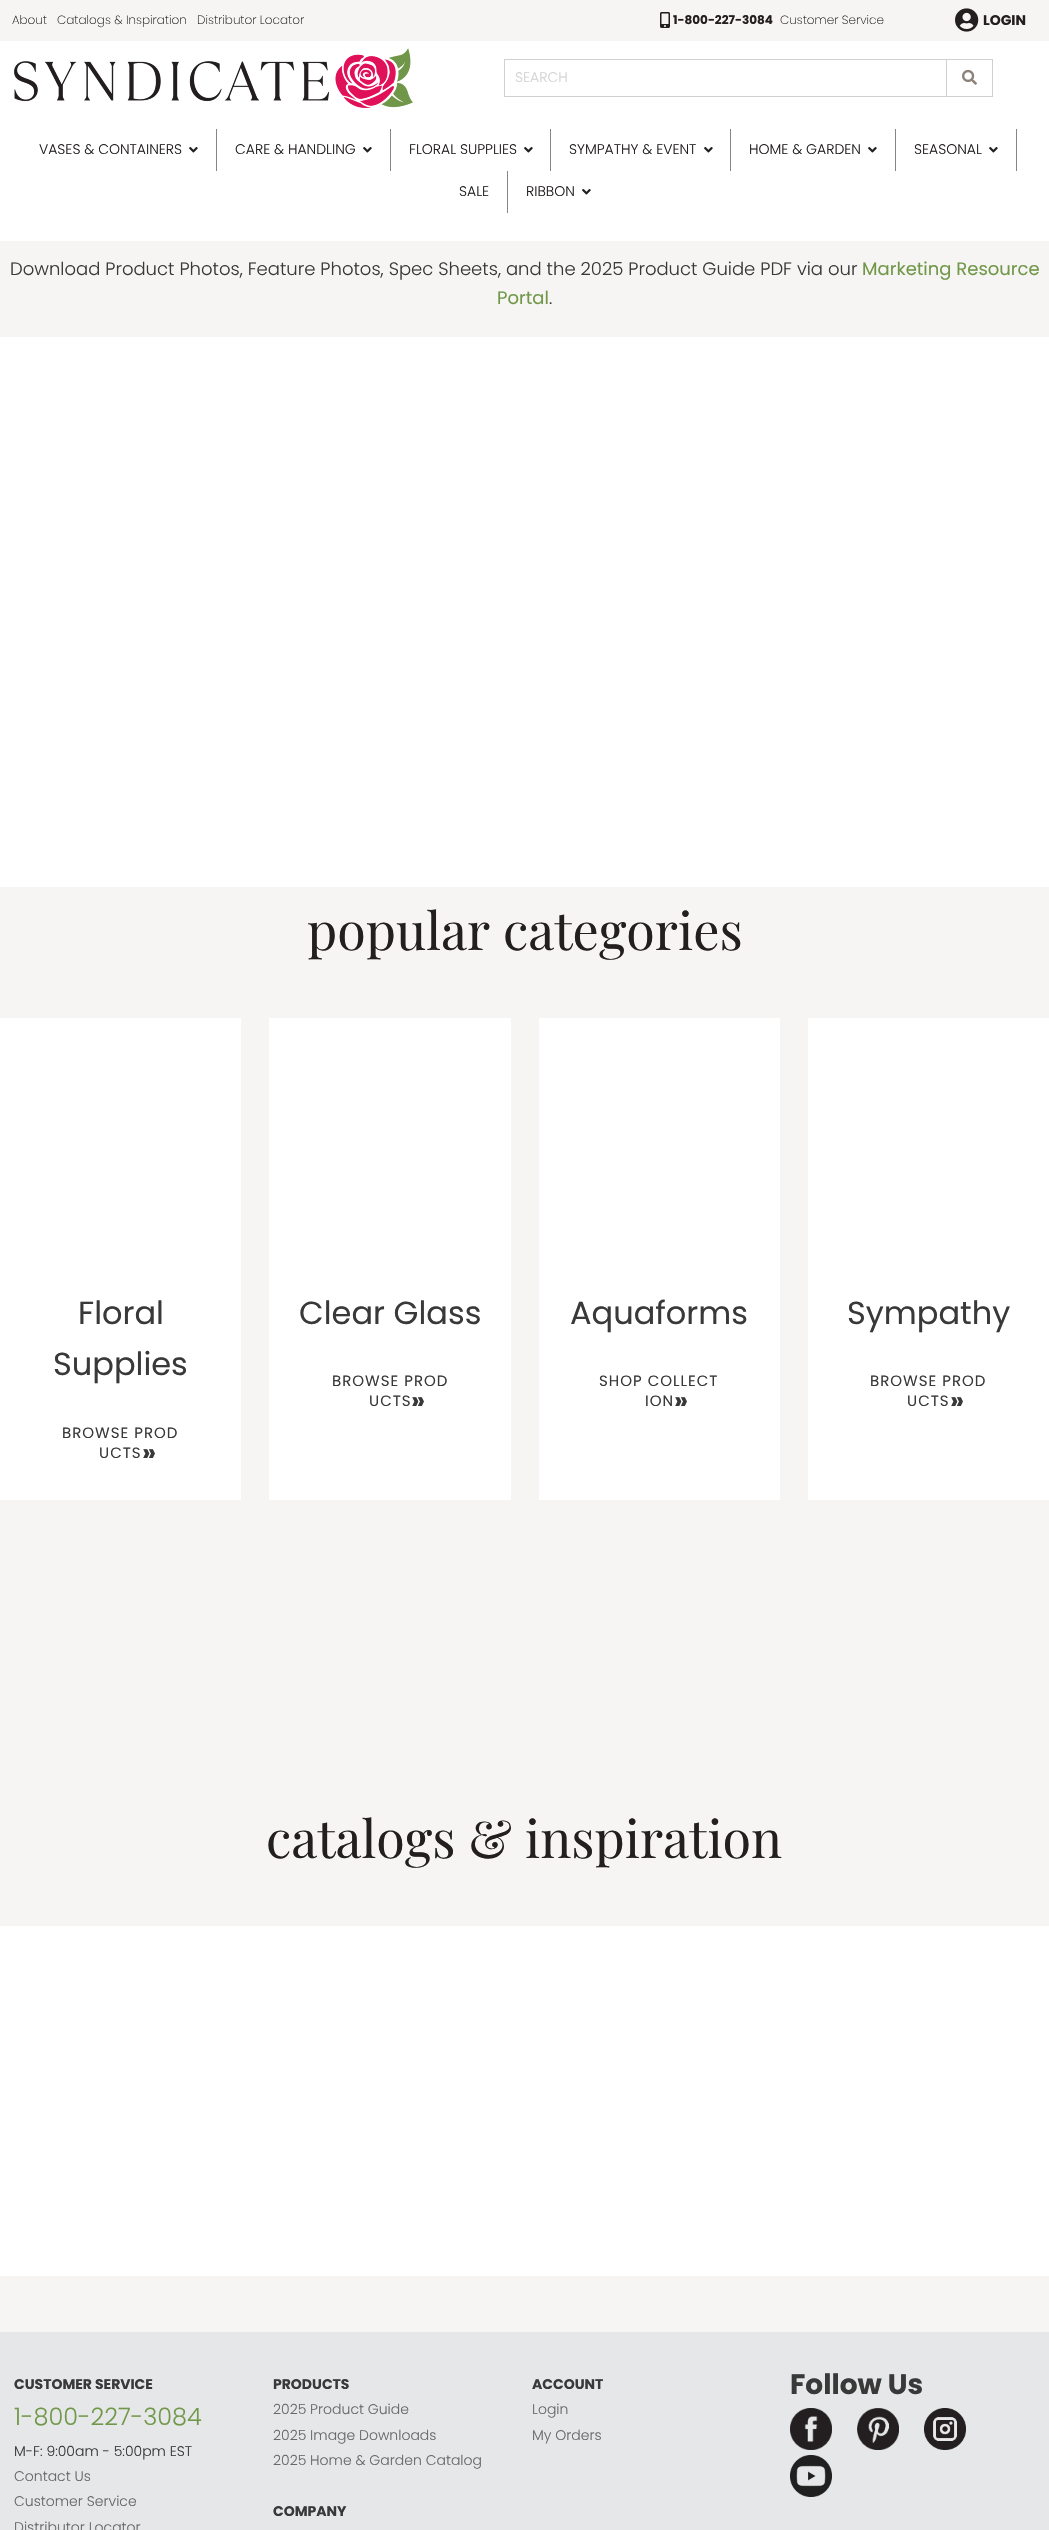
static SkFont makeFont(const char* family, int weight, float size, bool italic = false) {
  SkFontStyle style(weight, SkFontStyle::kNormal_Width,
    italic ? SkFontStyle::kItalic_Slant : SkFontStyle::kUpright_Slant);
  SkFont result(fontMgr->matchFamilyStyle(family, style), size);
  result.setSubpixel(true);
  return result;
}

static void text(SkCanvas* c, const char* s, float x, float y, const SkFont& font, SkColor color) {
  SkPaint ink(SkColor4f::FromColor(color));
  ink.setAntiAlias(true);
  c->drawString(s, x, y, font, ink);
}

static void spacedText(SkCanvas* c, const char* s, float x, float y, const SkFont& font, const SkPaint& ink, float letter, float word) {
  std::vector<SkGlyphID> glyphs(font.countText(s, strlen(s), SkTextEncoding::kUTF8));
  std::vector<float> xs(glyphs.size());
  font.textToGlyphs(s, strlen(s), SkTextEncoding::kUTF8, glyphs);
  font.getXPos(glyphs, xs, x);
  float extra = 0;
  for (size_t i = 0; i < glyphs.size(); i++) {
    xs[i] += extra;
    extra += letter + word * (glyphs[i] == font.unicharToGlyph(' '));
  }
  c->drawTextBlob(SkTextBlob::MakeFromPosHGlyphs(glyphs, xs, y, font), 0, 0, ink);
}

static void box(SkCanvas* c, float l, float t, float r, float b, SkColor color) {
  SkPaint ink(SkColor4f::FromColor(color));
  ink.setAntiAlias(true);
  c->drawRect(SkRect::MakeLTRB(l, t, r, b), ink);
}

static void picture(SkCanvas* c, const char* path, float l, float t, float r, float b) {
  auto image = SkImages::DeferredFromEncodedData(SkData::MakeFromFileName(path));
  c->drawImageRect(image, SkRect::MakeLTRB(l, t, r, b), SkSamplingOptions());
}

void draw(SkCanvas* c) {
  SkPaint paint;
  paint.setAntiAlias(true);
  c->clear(0xffffffff);
  box(c, 0, 0, 1049, 41, 0xfff6f5f3);
  SkFont face1 = makeFont("Poppins", 200, 12);
  text(c, "About", 12, 24, face1, 0xff231f20);
  text(c, "Catalogs & Inspiration", 57, 24, face1, 0xff231f20);
  text(c, "Distributor Locator", 197, 24, face1, 0xff231f20);
  picture(c, "img_01.png", 660, 12, 670, 28);
  SkFont face2 = makeFont("Poppins", 700, 12);
  text(c, "1-800-227-3084", 673, 24, face2, 0xff231f20);
  text(c, "Customer Service", 780, 24, face1, 0xff231f20);
  picture(c, "img_02.png", 955, 8, 979, 32);
  SkFont face3 = makeFont("Poppins", 700, 14);
  text(c, "LOGIN", 983, 25, face3, 0xff231f20);
  picture(c, "img_03.png", 14, 48, 413, 108);
  paint.setStyle(SkPaint::kStroke_Style);
  paint.setStrokeWidth(1);
  paint.setColor(0xffd1d1d1);
  c->drawRect(SkRect::MakeLTRB(504.5f, 59.5f, 946.5f, 96.5f), paint);
  SkFont face4 = makeFont("Poppins", 300, 14);
  text(c, "SEARCH", 515, 82, face4, 0xffd3d3d3);
  box(c, 947, 59, 993, 60, 0xffd1d1d1);
  box(c, 992, 59, 993, 97, 0xffd1d1d1);
  box(c, 947, 96, 993, 97, 0xffd1d1d1);
  picture(c, "img_04.png", 962, 69, 977, 85);
  box(c, 216, 129, 217, 171, 0xff858585);
  text(c, "VASES & CONTAINERS", 39, 154, face4, 0xff231f20);
  picture(c, "img_05.png", 189, 147, 198, 153);
  box(c, 390, 129, 391, 171, 0xff858585);
  text(c, "CARE & HANDLING", 235, 154, face4, 0xff231f20);
  picture(c, "img_05.png", 363, 147, 372, 153);
  box(c, 550, 129, 551, 171, 0xff858585);
  text(c, "FLORAL SUPPLIES", 409, 154, face4, 0xff231f20);
  picture(c, "img_05.png", 524, 147, 533, 153);
  box(c, 730, 129, 731, 171, 0xff858585);
  text(c, "SYMPATHY & EVENT", 569, 154, face4, 0xff231f20);
  picture(c, "img_05.png", 704, 147, 713, 153);
  box(c, 895, 129, 896, 171, 0xff858585);
  text(c, "HOME & GARDEN", 749, 154, face4, 0xff231f20);
  picture(c, "img_05.png", 868, 147, 877, 153);
  box(c, 1016, 129, 1017, 171, 0xff858585);
  text(c, "SEASONAL", 914, 154, face4, 0xff231f20);
  picture(c, "img_05.png", 989, 147, 998, 153);
  box(c, 507, 171, 508, 213, 0xff858585);
  text(c, "SALE", 459, 196, face4, 0xff231f20);
  text(c, "RIBBON", 526, 196, face4, 0xff231f20);
  picture(c, "img_05.png", 582, 189, 591, 195);
  box(c, 0, 241, 1049, 337, 0xfff6f5f3);
  SkFont face5 = makeFont("Poppins", 300, 18);
  text(c, "Download Product Photos, Feature Photos, Spec Sheets, and the 2025 Product Guide PDF via our", 10, 275, face5, 0xff393939);
  SkFont face6 = makeFont("Poppins", 400, 18);
  text(c, "Marketing Resource", 862, 275, face6, 0xff71984a);
  text(c, "Portal", 497, 304, face6, 0xff71984a);
  text(c, ".", 549, 304, face5, 0xff393939);
  box(c, 0, 887, 1049, 1926, 0xfff6f5f3);
  SkFont face7 = makeFont("Playfair Display", 400, 52);
  text(c, "popular categories", 307, 950, face7, 0xff231f20);
  box(c, 0, 1018, 241, 1500, 0xffffffff);
  SkFont face8 = makeFont("Poppins", 400, 32);
  text(c, "Floral", 78, 1324, face8, 0xff393939);
  text(c, "Supplies", 53, 1375, face8, 0xff393939);
  SkFont face9 = makeFont("Poppins", 400, 15);
  paint.setStyle(SkPaint::kFill_Style);
  paint.setColor(0xff393939);
  spacedText(c, "BROWSE PROD", 62, 1438, face9, paint, 1, 0);
  spacedText(c, "UCTS", 99, 1458, face9, paint, 1, 0);
  SkFont face10 = makeFont("Poppins", 700, 25);
  spacedText(c, "»", 142, 1461, face10, paint, 1, 0);
  box(c, 269, 1018, 511, 1500, 0xffffffff);
  text(c, "Clear Glass", 299, 1324, face8, 0xff393939);
  spacedText(c, "BROWSE PROD", 332, 1386, face9, paint, 1, 0);
  spacedText(c, "UCTS", 369, 1406, face9, paint, 1, 0);
  spacedText(c, "»", 411, 1409, face10, paint, 1, 0);
  box(c, 539, 1018, 780, 1500, 0xffffffff);
  text(c, "Aquaforms", 570, 1324, face8, 0xff393939);
  spacedText(c, "SHOP COLLECT", 599, 1386, face9, paint, 1, 0);
  spacedText(c, "ION", 645, 1406, face9, paint, 1, 0);
  spacedText(c, "»", 674, 1409, face10, paint, 1, 0);
  box(c, 808, 1018, 1049, 1500, 0xffffffff);
  text(c, "Sympathy", 847, 1324, face8, 0xff393939);
  spacedText(c, "BROWSE PROD", 870, 1386, face9, paint, 1, 0);
  spacedText(c, "UCTS", 907, 1406, face9, paint, 1, 0);
  spacedText(c, "»", 950, 1409, face10, paint, 1, 0);
  text(c, "catalogs & inspiration", 266, 1858, face7, 0xff231f20);
  box(c, 0, 2276, 1049, 2332, 0xfff6f5f3);
  box(c, 0, 2332, 1049, 2530, 0xffe6e7e8);
  text(c, "CUSTOMER SERVICE", 14, 2389, face3, 0xff393939);
  SkFont face11 = makeFont("Poppins", 300, 24);
  text(c, "1-800-227-3084", 14, 2425, face11, 0xff71984a);
  text(c, "M-F: 9:00am - 5:00pm EST", 14, 2456, face4, 0xff393939);
  text(c, "Contact Us", 14, 2481, face4, 0xff696969);
  text(c, "Customer Service", 14, 2506, face4, 0xff696969);
  text(c, "Distributor Locator", 14, 2532, face4, 0xff696969);
  text(c, "PRODUCTS", 273, 2389, face3, 0xff393939);
  text(c, "2025 Product Guide", 273, 2414, face4, 0xff696969);
  text(c, "2025 Image Downloads", 273, 2440, face4, 0xff696969);
  text(c, "2025 Home & Garden Catalog", 273, 2465, face4, 0xff696969);
  text(c, "COMPANY", 273, 2516, face3, 0xff393939);
  text(c, "ACCOUNT", 532, 2389, face3, 0xff393939);
  text(c, "Login", 532, 2414, face4, 0xff696969);
  text(c, "My Orders", 532, 2440, face4, 0xff696969);
  SkFont face12 = makeFont("Poppins", 700, 28);
  text(c, "Follow Us", 790, 2394, face12, 0xff393939);
  picture(c, "img_06.png", 790, 2408, 832, 2450);
  picture(c, "img_07.png", 857, 2408, 899, 2450);
  picture(c, "img_08.png", 924, 2408, 966, 2450);
  picture(c, "img_09.png", 790, 2455, 832, 2497);
}
